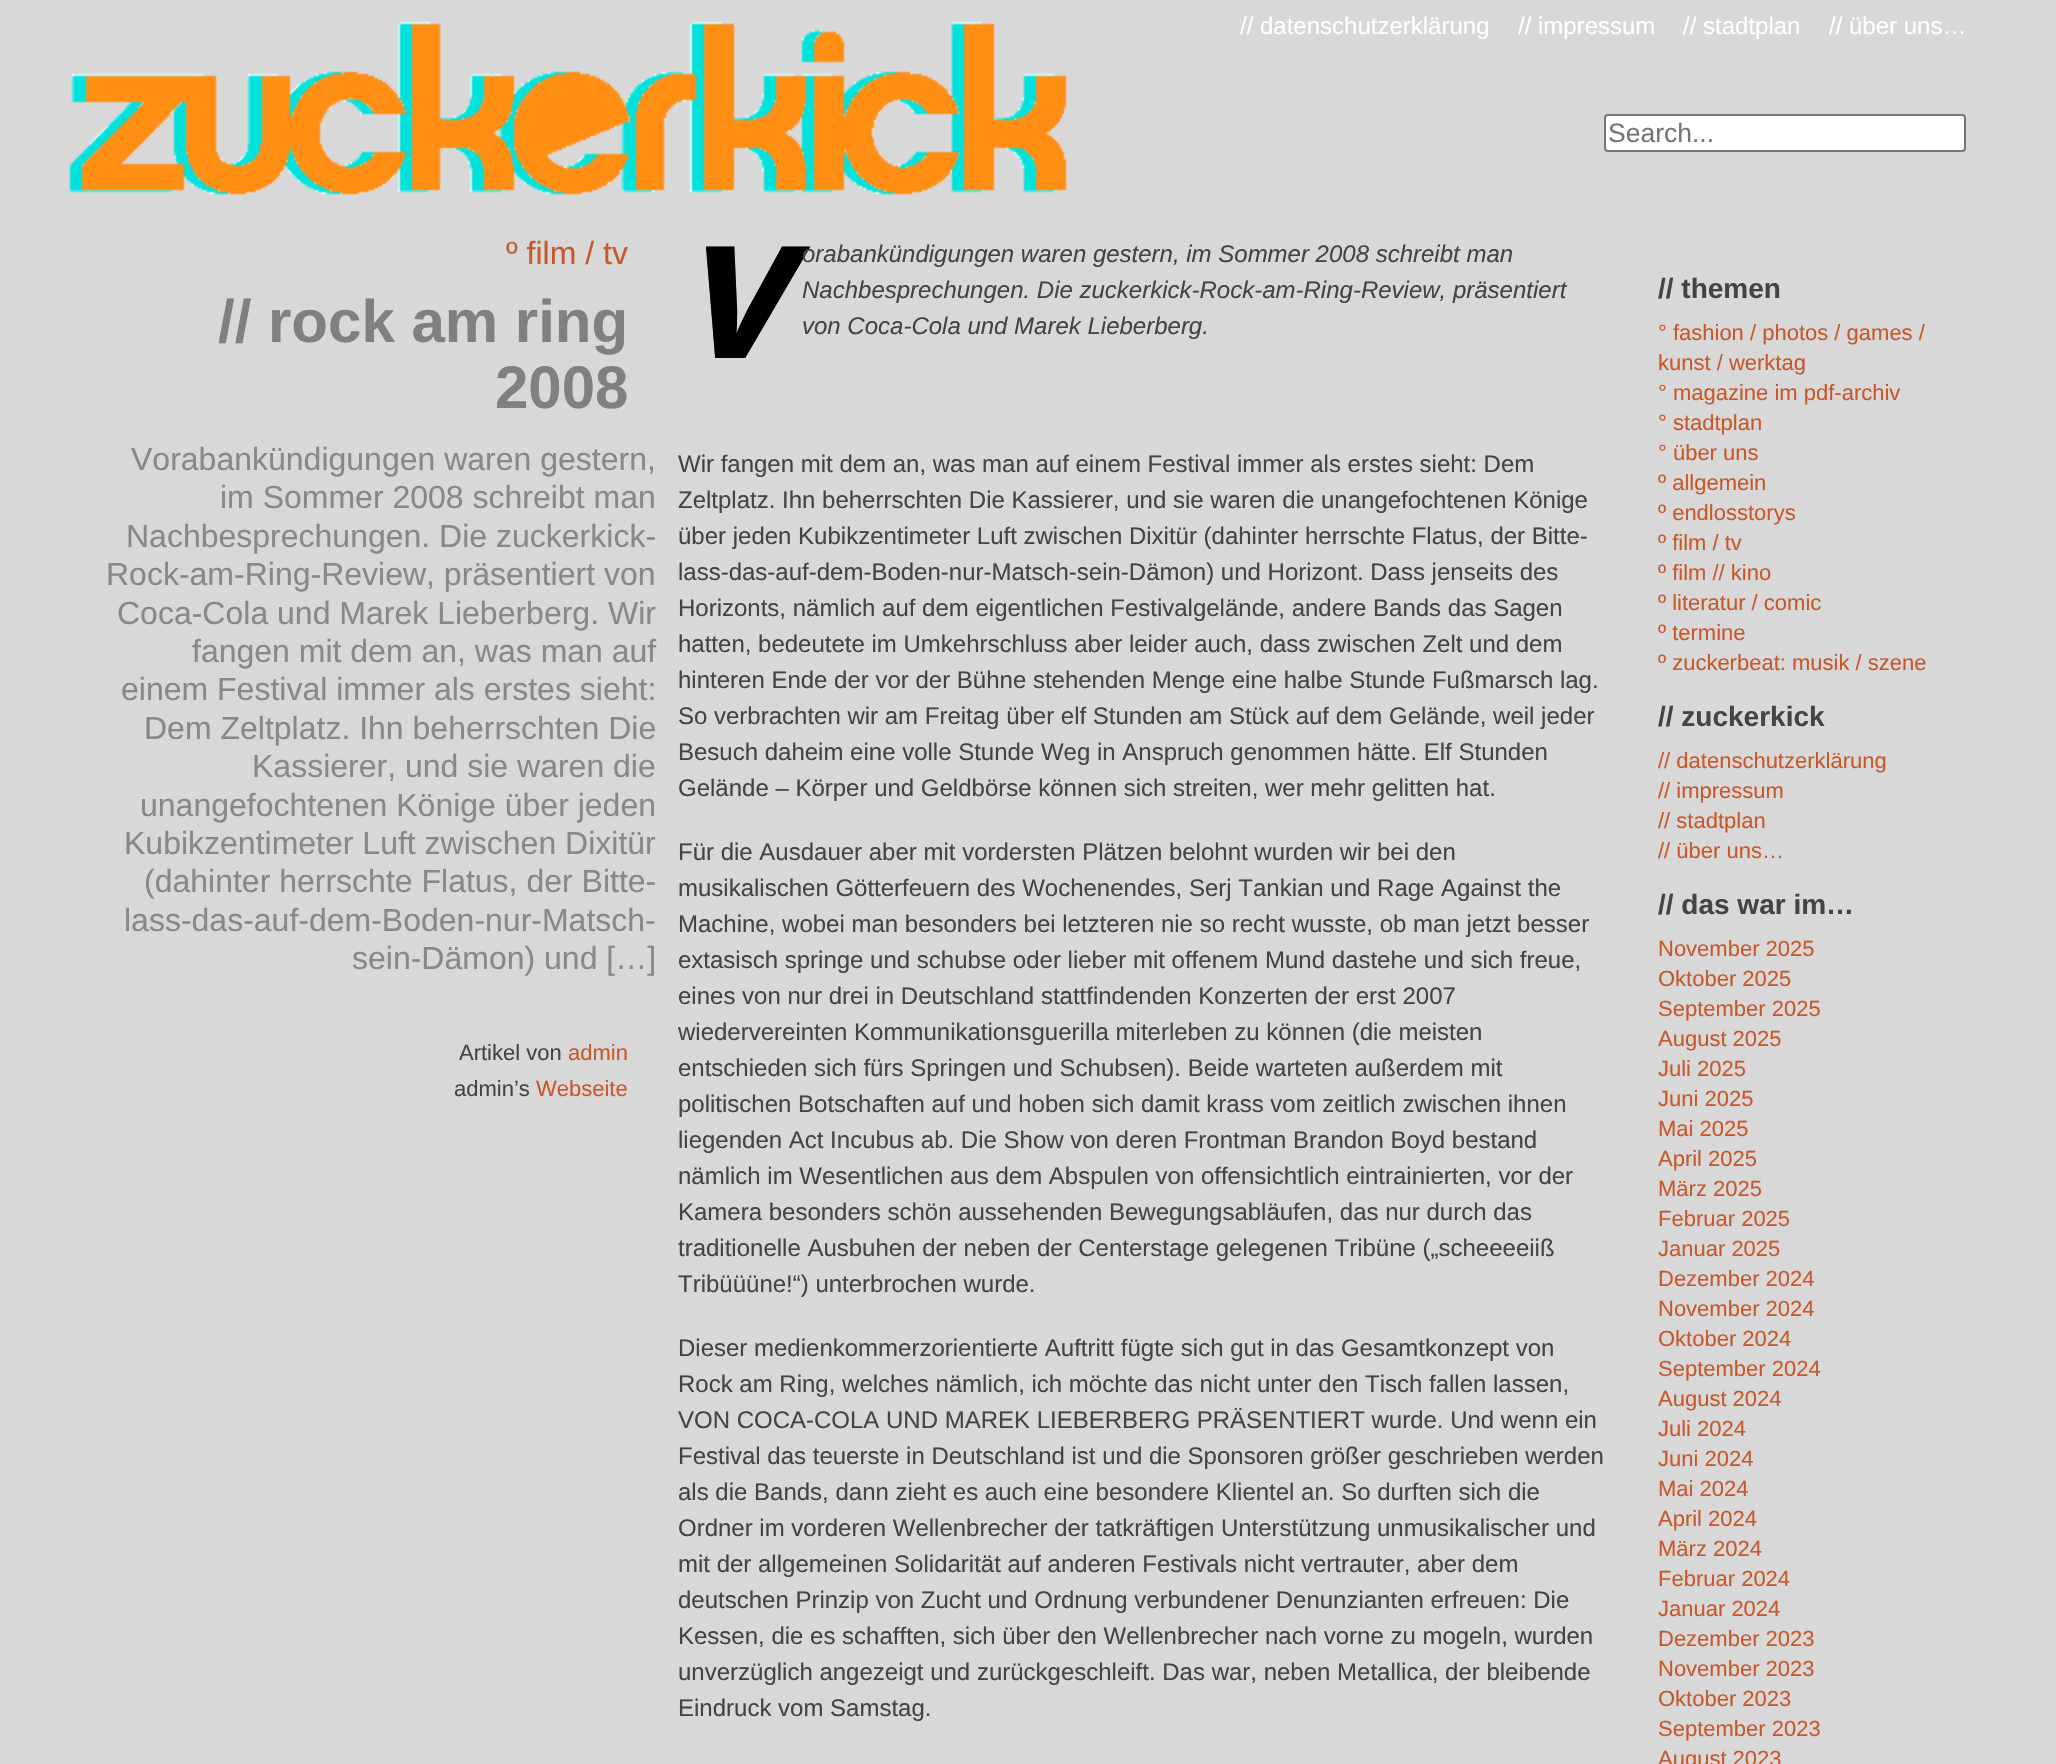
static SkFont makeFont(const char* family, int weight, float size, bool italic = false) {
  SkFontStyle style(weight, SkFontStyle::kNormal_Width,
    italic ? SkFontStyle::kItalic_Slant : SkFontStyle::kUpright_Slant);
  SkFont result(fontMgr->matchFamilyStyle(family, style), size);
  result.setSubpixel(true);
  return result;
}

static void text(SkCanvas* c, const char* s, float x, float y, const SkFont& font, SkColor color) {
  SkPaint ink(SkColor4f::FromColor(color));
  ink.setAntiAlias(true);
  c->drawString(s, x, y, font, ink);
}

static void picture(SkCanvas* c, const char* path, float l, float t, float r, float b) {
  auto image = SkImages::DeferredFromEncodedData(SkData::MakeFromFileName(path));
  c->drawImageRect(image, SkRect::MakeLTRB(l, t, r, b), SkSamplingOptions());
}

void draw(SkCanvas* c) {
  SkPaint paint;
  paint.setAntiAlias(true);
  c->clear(0xffd8d8d8);
  picture(c, "img_01.png", 69, 21, 1067, 195);
  SkFont face1 = makeFont("Liberation Sans", 400, 24);
  text(c, "// datenschutzerklärung", 1240, 34, face1, 0xffffffff);
  text(c, "// impressum", 1518, 34, face1, 0xffffffff);
  text(c, "// stadtplan", 1683, 34, face1, 0xffffffff);
  text(c, "// über uns…", 1829, 34, face1, 0xffffffff);
  paint.setColor(0xffffffff);
  c->drawRoundRect(SkRect::MakeLTRB(1605, 115, 1965, 151), 3, 3, paint);
  paint.setStyle(SkPaint::kStroke_Style);
  paint.setStrokeWidth(2);
  paint.setColor(0xff767676);
  c->drawRoundRect(SkRect::MakeLTRB(1605, 115, 1965, 151), 3, 3, paint);
  SkFont face2 = makeFont("Liberation Sans", 400, 26.5f);
  text(c, "Search...", 1608, 142, face2, 0xff757575);
  SkFont face3 = makeFont("Liberation Sans", 400, 32);
  text(c, "º film / tv", 506, 264, face3, 0xffc8582a);
  SkFont face4 = makeFont("Liberation Sans", 700, 60);
  text(c, "// rock am ring", 218, 342, face4, 0xff808080);
  text(c, "2008", 495, 408, face4, 0xff808080);
  text(c, "Vorabankündigungen waren gestern,", 131, 470, face3, 0xff888888);
  text(c, "im Sommer 2008 schreibt man", 220, 508, face3, 0xff888888);
  text(c, "Nachbesprechungen. Die zuckerkick-", 126, 547, face3, 0xff888888);
  text(c, "Rock-am-Ring-Review, präsentiert von", 106, 585, face3, 0xff888888);
  text(c, "Coca-Cola und Marek Lieberberg. Wir", 117, 624, face3, 0xff888888);
  text(c, "fangen mit dem an, was man auf", 192, 662, face3, 0xff888888);
  text(c, "einem Festival immer als erstes sieht:", 121, 700, face3, 0xff888888);
  text(c, "Dem Zeltplatz. Ihn beherrschten Die", 144, 739, face3, 0xff888888);
  text(c, "Kassierer, und sie waren die", 252, 777, face3, 0xff888888);
  text(c, "unangefochtenen Könige über jeden", 140, 816, face3, 0xff888888);
  text(c, "Kubikzentimeter Luft zwischen Dixitür", 124, 854, face3, 0xff888888);
  text(c, "(dahinter herrschte Flatus, der Bitte-", 144, 892, face3, 0xff888888);
  text(c, "lass-das-auf-dem-Boden-nur-Matsch-", 124, 931, face3, 0xff888888);
  text(c, "sein-Dämon) und […]", 352, 969, face3, 0xff888888);
  SkFont face5 = makeFont("Liberation Sans", 400, 22);
  text(c, "Artikel von", 459, 1060, face5, 0xff444444);
  text(c, "admin", 568, 1060, face5, 0xffc8582a);
  text(c, "admin’s", 454, 1096, face5, 0xff444444);
  text(c, "Webseite", 536, 1096, face5, 0xffc8582a);
  SkFont face6 = makeFont("Noto Sans", 800, 156, true);
  text(c, "V", 678, 358, face6, 0xff000000);
  SkFont face7 = makeFont("Liberation Sans", 400, 24, true);
  text(c, "orabankündigungen waren gestern, im Sommer 2008 schreibt man", 802, 262, face7, 0xff444444);
  text(c, "Nachbesprechungen. Die zuckerkick-Rock-am-Ring-Review, präsentiert", 802, 298, face7, 0xff444444);
  text(c, "von Coca-Cola und Marek Lieberberg.", 802, 334, face7, 0xff444444);
  text(c, "Wir fangen mit dem an, was man auf einem Festival immer als erstes sieht: Dem", 678, 472, face1, 0xff444444);
  text(c, "Zeltplatz. Ihn beherrschten Die Kassierer, und sie waren die unangefochtenen Könige", 678, 508, face1, 0xff444444);
  text(c, "über jeden Kubikzentimeter Luft zwischen Dixitür (dahinter herrschte Flatus, der Bitte-", 678, 544, face1, 0xff444444);
  text(c, "lass-das-auf-dem-Boden-nur-Matsch-sein-Dämon) und Horizont. Dass jenseits des", 678, 580, face1, 0xff444444);
  text(c, "Horizonts, nämlich auf dem eigentlichen Festivalgelände, andere Bands das Sagen", 678, 616, face1, 0xff444444);
  text(c, "hatten, bedeutete im Umkehrschluss aber leider auch, dass zwischen Zelt und dem", 678, 652, face1, 0xff444444);
  text(c, "hinteren Ende der vor der Bühne stehenden Menge eine halbe Stunde Fußmarsch lag.", 678, 688, face1, 0xff444444);
  text(c, "So verbrachten wir am Freitag über elf Stunden am Stück auf dem Gelände, weil jeder", 678, 724, face1, 0xff444444);
  text(c, "Besuch daheim eine volle Stunde Weg in Anspruch genommen hätte. Elf Stunden", 678, 760, face1, 0xff444444);
  text(c, "Gelände – Körper und Geldbörse können sich streiten, wer mehr gelitten hat.", 678, 796, face1, 0xff444444);
  text(c, "Für die Ausdauer aber mit vordersten Plätzen belohnt wurden wir bei den", 678, 860, face1, 0xff444444);
  text(c, "musikalischen Götterfeuern des Wochenendes, Serj Tankian und Rage Against the", 678, 896, face1, 0xff444444);
  text(c, "Machine, wobei man besonders bei letzteren nie so recht wusste, ob man jetzt besser", 678, 932, face1, 0xff444444);
  text(c, "extasisch springe und schubse oder lieber mit offenem Mund dastehe und sich freue,", 678, 968, face1, 0xff444444);
  text(c, "eines von nur drei in Deutschland stattfindenden Konzerten der erst 2007", 678, 1004, face1, 0xff444444);
  text(c, "wiedervereinten Kommunikationsguerilla miterleben zu können (die meisten", 678, 1040, face1, 0xff444444);
  text(c, "entschieden sich fürs Springen und Schubsen). Beide warteten außerdem mit", 678, 1076, face1, 0xff444444);
  text(c, "politischen Botschaften auf und hoben sich damit krass vom zeitlich zwischen ihnen", 678, 1112, face1, 0xff444444);
  text(c, "liegenden Act Incubus ab. Die Show von deren Frontman Brandon Boyd bestand", 678, 1148, face1, 0xff444444);
  text(c, "nämlich im Wesentlichen aus dem Abspulen von offensichtlich eintrainierten, vor der", 678, 1184, face1, 0xff444444);
  text(c, "Kamera besonders schön aussehenden Bewegungsabläufen, das nur durch das", 678, 1220, face1, 0xff444444);
  text(c, "traditionelle Ausbuhen der neben der Centerstage gelegenen Tribüne („scheeeeiiß", 678, 1256, face1, 0xff444444);
  text(c, "Tribüüüne!“) unterbrochen wurde.", 678, 1292, face1, 0xff444444);
  text(c, "Dieser medienkommerzorientierte Auftritt fügte sich gut in das Gesamtkonzept von", 678, 1356, face1, 0xff444444);
  text(c, "Rock am Ring, welches nämlich, ich möchte das nicht unter den Tisch fallen lassen,", 678, 1392, face1, 0xff444444);
  text(c, "VON COCA-COLA UND MAREK LIEBERBERG PRÄSENTIERT wurde. Und wenn ein", 678, 1428, face1, 0xff444444);
  text(c, "Festival das teuerste in Deutschland ist und die Sponsoren größer geschrieben werden", 678, 1464, face1, 0xff444444);
  text(c, "als die Bands, dann zieht es auch eine besondere Klientel an. So durften sich die", 678, 1500, face1, 0xff444444);
  text(c, "Ordner im vorderen Wellenbrecher der tatkräftigen Unterstützung unmusikalischer und", 678, 1536, face1, 0xff444444);
  text(c, "mit der allgemeinen Solidarität auf anderen Festivals nicht vertrauter, aber dem", 678, 1572, face1, 0xff444444);
  text(c, "deutschen Prinzip von Zucht und Ordnung verbundener Denunzianten erfreuen: Die", 678, 1608, face1, 0xff444444);
  text(c, "Kessen, die es schafften, sich über den Wellenbrecher nach vorne zu mogeln, wurden", 678, 1644, face1, 0xff444444);
  text(c, "unverzüglich angezeigt und zurückgeschleift. Das war, neben Metallica, der bleibende", 678, 1680, face1, 0xff444444);
  text(c, "Eindruck vom Samstag.", 678, 1716, face1, 0xff444444);
  SkFont face8 = makeFont("Liberation Sans", 700, 28);
  text(c, "// themen", 1658, 298, face8, 0xff444444);
  text(c, "° fashion / photos / games /", 1658, 340, face5, 0xffc8582a);
  text(c, "kunst / werktag", 1658, 370, face5, 0xffc8582a);
  text(c, "° magazine im pdf-archiv", 1658, 400, face5, 0xffc8582a);
  text(c, "° stadtplan", 1658, 430, face5, 0xffc8582a);
  text(c, "° über uns", 1658, 460, face5, 0xffc8582a);
  text(c, "º allgemein", 1658, 490, face5, 0xffc8582a);
  text(c, "º endlosstorys", 1658, 520, face5, 0xffc8582a);
  text(c, "º film / tv", 1658, 550, face5, 0xffc8582a);
  text(c, "º film // kino", 1658, 580, face5, 0xffc8582a);
  text(c, "º literatur / comic", 1658, 610, face5, 0xffc8582a);
  text(c, "º termine", 1658, 640, face5, 0xffc8582a);
  text(c, "º zuckerbeat: musik / szene", 1658, 670, face5, 0xffc8582a);
  text(c, "// zuckerkick", 1658, 726, face8, 0xff444444);
  text(c, "// datenschutzerklärung", 1658, 768, face5, 0xffc8582a);
  text(c, "// impressum", 1658, 798, face5, 0xffc8582a);
  text(c, "// stadtplan", 1658, 828, face5, 0xffc8582a);
  text(c, "// über uns…", 1658, 858, face5, 0xffc8582a);
  text(c, "// das war im…", 1658, 914, face8, 0xff444444);
  text(c, "November 2025", 1658, 956, face5, 0xffc8582a);
  text(c, "Oktober 2025", 1658, 986, face5, 0xffc8582a);
  text(c, "September 2025", 1658, 1016, face5, 0xffc8582a);
  text(c, "August 2025", 1658, 1046, face5, 0xffc8582a);
  text(c, "Juli 2025", 1658, 1076, face5, 0xffc8582a);
  text(c, "Juni 2025", 1658, 1106, face5, 0xffc8582a);
  text(c, "Mai 2025", 1658, 1136, face5, 0xffc8582a);
  text(c, "April 2025", 1658, 1166, face5, 0xffc8582a);
  text(c, "März 2025", 1658, 1196, face5, 0xffc8582a);
  text(c, "Februar 2025", 1658, 1226, face5, 0xffc8582a);
  text(c, "Januar 2025", 1658, 1256, face5, 0xffc8582a);
  text(c, "Dezember 2024", 1658, 1286, face5, 0xffc8582a);
  text(c, "November 2024", 1658, 1316, face5, 0xffc8582a);
  text(c, "Oktober 2024", 1658, 1346, face5, 0xffc8582a);
  text(c, "September 2024", 1658, 1376, face5, 0xffc8582a);
  text(c, "August 2024", 1658, 1406, face5, 0xffc8582a);
  text(c, "Juli 2024", 1658, 1436, face5, 0xffc8582a);
  text(c, "Juni 2024", 1658, 1466, face5, 0xffc8582a);
  text(c, "Mai 2024", 1658, 1496, face5, 0xffc8582a);
  text(c, "April 2024", 1658, 1526, face5, 0xffc8582a);
  text(c, "März 2024", 1658, 1556, face5, 0xffc8582a);
  text(c, "Februar 2024", 1658, 1586, face5, 0xffc8582a);
  text(c, "Januar 2024", 1658, 1616, face5, 0xffc8582a);
  text(c, "Dezember 2023", 1658, 1646, face5, 0xffc8582a);
  text(c, "November 2023", 1658, 1676, face5, 0xffc8582a);
  text(c, "Oktober 2023", 1658, 1706, face5, 0xffc8582a);
  text(c, "September 2023", 1658, 1736, face5, 0xffc8582a);
  text(c, "August 2023", 1658, 1766, face5, 0xffc8582a);
}
